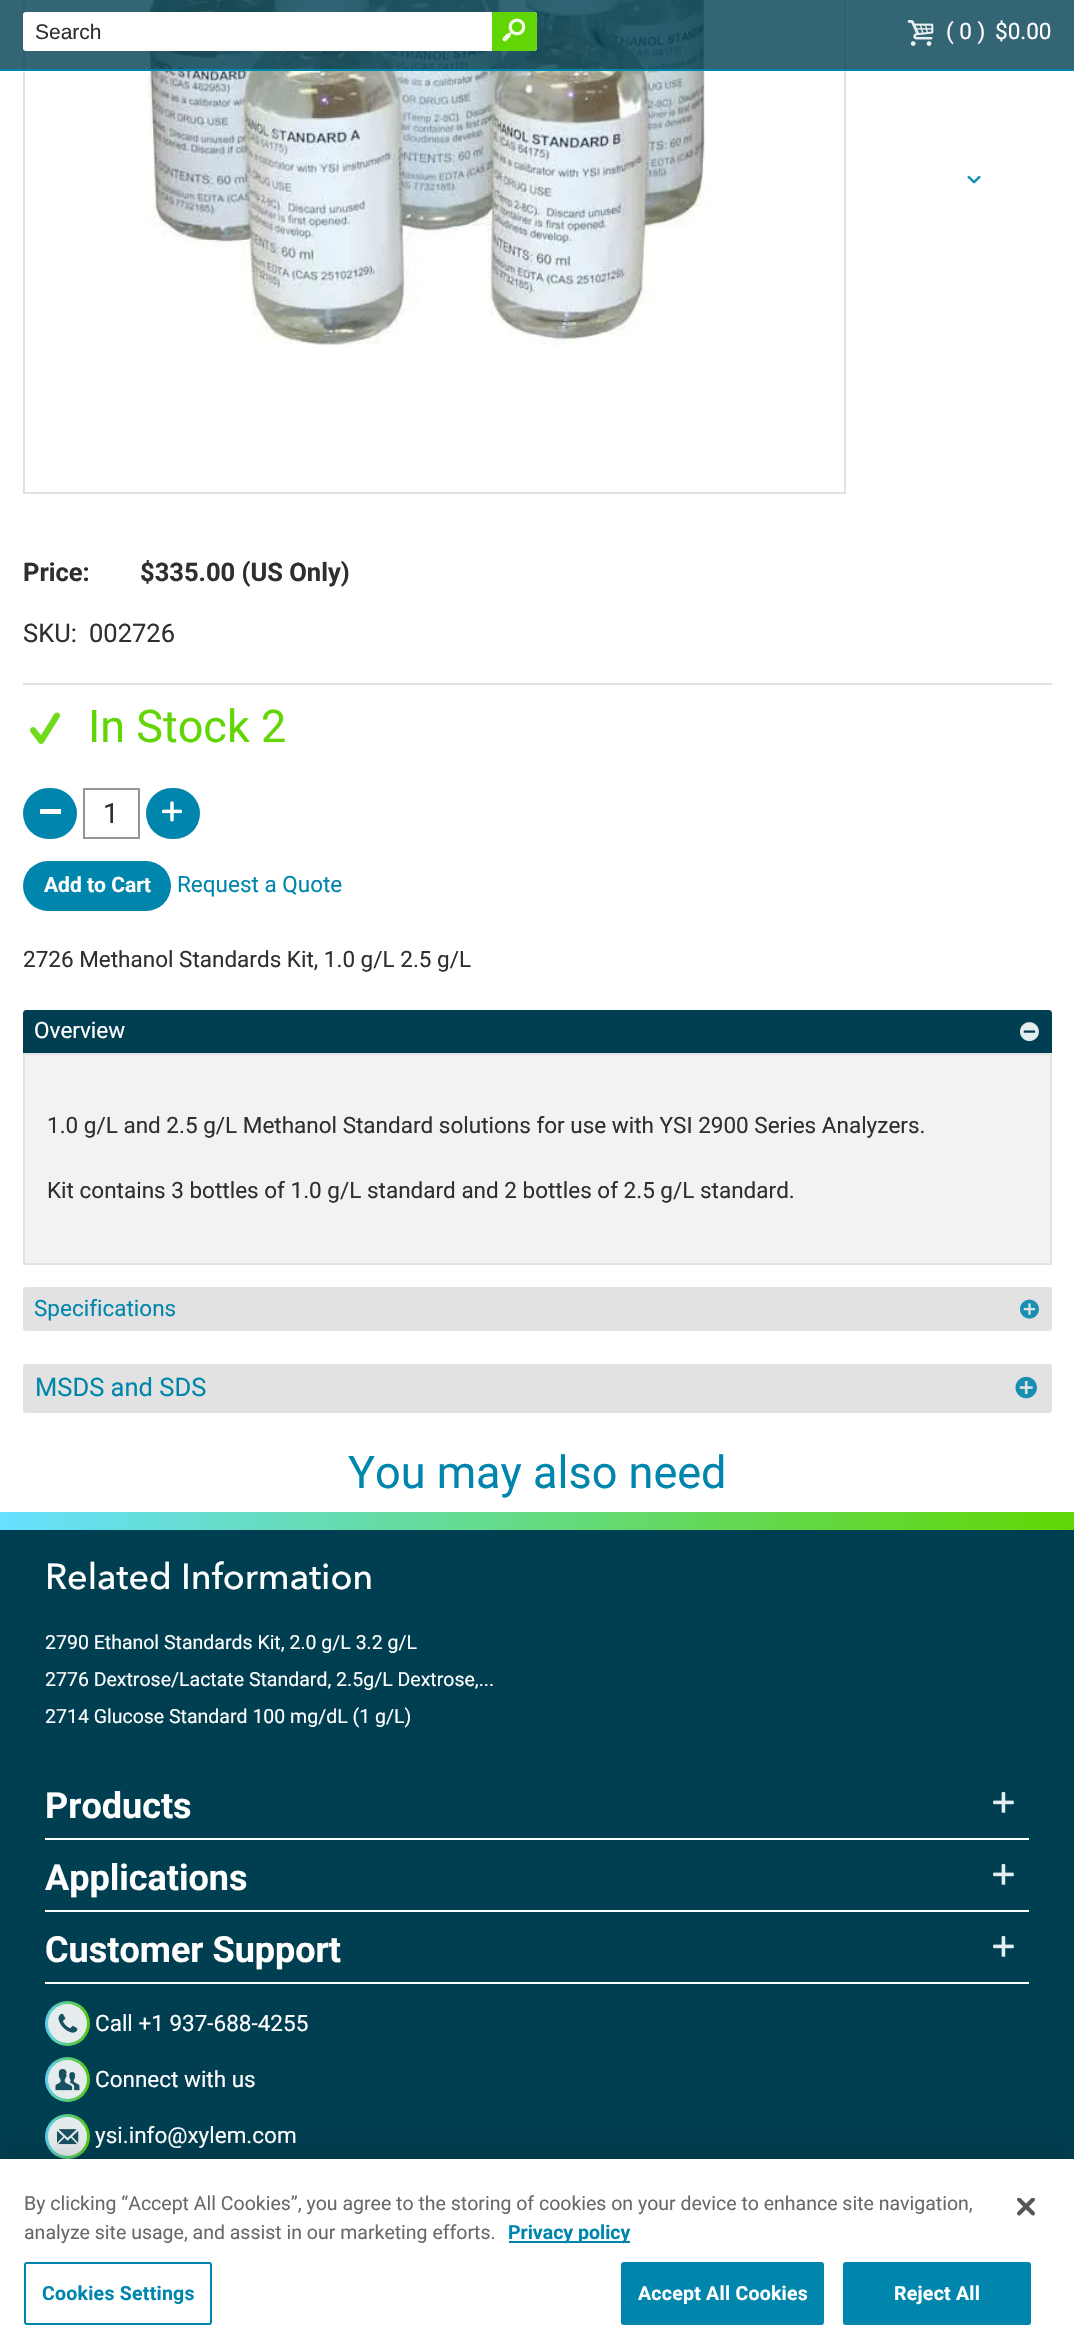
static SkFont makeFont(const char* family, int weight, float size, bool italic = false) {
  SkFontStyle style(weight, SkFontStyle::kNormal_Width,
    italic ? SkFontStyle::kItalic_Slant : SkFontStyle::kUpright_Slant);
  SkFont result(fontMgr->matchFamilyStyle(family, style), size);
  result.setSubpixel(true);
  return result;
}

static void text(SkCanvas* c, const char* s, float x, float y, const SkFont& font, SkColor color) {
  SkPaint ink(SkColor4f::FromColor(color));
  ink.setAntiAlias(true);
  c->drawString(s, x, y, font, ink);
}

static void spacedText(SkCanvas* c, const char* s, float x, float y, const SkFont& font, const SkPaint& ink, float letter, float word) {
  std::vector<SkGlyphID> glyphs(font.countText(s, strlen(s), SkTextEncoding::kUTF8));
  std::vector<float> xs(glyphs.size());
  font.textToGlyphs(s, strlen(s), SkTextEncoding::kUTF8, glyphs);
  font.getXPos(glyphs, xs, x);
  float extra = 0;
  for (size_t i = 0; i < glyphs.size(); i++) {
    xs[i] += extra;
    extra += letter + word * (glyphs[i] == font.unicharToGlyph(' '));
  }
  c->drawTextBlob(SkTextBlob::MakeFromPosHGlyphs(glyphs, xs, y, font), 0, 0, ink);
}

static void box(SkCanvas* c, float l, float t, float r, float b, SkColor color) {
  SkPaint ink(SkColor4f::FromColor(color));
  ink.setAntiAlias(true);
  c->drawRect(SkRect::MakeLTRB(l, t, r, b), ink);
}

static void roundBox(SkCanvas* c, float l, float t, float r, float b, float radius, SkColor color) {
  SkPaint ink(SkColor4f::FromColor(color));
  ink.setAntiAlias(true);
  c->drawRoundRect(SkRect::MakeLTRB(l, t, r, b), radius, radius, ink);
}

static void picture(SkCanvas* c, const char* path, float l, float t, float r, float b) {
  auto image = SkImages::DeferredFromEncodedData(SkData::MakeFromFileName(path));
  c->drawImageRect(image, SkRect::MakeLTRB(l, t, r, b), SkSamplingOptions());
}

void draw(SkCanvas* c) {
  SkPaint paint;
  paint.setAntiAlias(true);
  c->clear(0xffffffff);
  paint.setStyle(SkPaint::kStroke_Style);
  paint.setStrokeWidth(2);
  paint.setColor(0xffe2e2e2);
  c->drawRect(SkRect::MakeLTRB(24, -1, 845, 493), paint);
  picture(c, "img_03.png", 143, 0, 709, 347);
  box(c, 0, 0, 1074, 69, 0xcc003e51);
  box(c, 0, 69, 1074, 71, 0xff0085ad);
  roundBox(c, 23, 12, 537, 51, 3, 0xffffffff);
  SkFont face1 = makeFont("Liberation Sans", 400, 21);
  text(c, "Search", 35, 39, face1, 0xff2f2f2f);
  paint.setStyle(SkPaint::kFill_Style);
  paint.setColor(0xff61d604);
  c->drawPath(SkPathBuilder().moveTo(492, 12).lineTo(534, 12).cubicTo(535.5f, 12, 537, 13.5f, 537, 15).lineTo(537, 48).cubicTo(537, 49.5f, 535.5f, 51, 534, 51).lineTo(492, 51).close().detach(), paint);
  picture(c, "img_01.png", 502, 18, 526, 42);
  picture(c, "img_02.png", 907, 20, 934, 46);
  SkFont face2 = makeFont("Roboto", 400, 22.5f);
  text(c, "( 0 )", 946, 39, face2, 0xffffffff);
  text(c, "$0.00", 995, 39, face2, 0xffffffff);
  picture(c, "img_04.png", 967, 175, 981, 184);
  SkFont face3 = makeFont("Roboto", 700, 25.5f);
  text(c, "Price:", 23, 581, face3, 0xff2f2f2f);
  text(c, "$335.00 (US Only)", 140, 581, face3, 0xff2f2f2f);
  SkFont face4 = makeFont("Roboto", 400, 25.5f);
  text(c, "SKU:", 23, 642, face4, 0xff2f2f2f);
  text(c, "002726", 89, 642, face4, 0xff2f2f2f);
  box(c, 23, 683, 1052, 685, 0xffe2e2e2);
  picture(c, "img_05.png", 30, 712, 60, 744);
  SkFont face5 = makeFont("Roboto", 400, 45);
  text(c, "In Stock 2", 88, 742, face5, 0xff61d604);
  roundBox(c, 23, 788, 77, 839, 25.5f, 0xff0085ad);
  box(c, 40, 809, 61, 814, 0xffffffff);
  paint.setStyle(SkPaint::kStroke_Style);
  paint.setColor(0xff959595);
  c->drawRect(SkRect::MakeLTRB(84, 789, 139, 838), paint);
  SkFont face6 = makeFont("Roboto", 400, 28);
  text(c, "1", 103, 823, face6, 0xff2f2f2f);
  roundBox(c, 146, 788, 200, 839, 25.5f, 0xff0085ad);
  picture(c, "img_06.png", 162, 801, 182, 822);
  roundBox(c, 23, 861, 171, 911, 25, 0xff0085ad);
  SkFont face7 = makeFont("Roboto", 700, 21);
  text(c, "Add to Cart", 44, 892, face7, 0xffffffff);
  text(c, "Request a Quote", 177, 892, face2, 0xff0085ad);
  text(c, "2726 Methanol Standards Kit, 1.0 g/L 2.5 g/L", 23, 967, face2, 0xff2f2f2f);
  paint.setStyle(SkPaint::kFill_Style);
  paint.setColor(0xff003e51);
  c->drawPath(SkPathBuilder().moveTo(26, 1010).lineTo(1049, 1010).cubicTo(1050.5f, 1010, 1052, 1011.5f, 1052, 1013).lineTo(1052, 1053).lineTo(23, 1053).lineTo(23, 1013).cubicTo(23, 1011.5f, 24.5f, 1010, 26, 1010).close().detach(), paint);
  text(c, "Overview", 34, 1038, face2, 0xffffffff);
  picture(c, "img_07.png", 1020, 1022, 1039, 1042);
  paint.setColor(0xfff1f2f3);
  c->drawRect(SkRect::MakeLTRB(24, 1054, 1051, 1264), paint);
  paint.setStyle(SkPaint::kStroke_Style);
  paint.setColor(0xffe2e2e2);
  c->drawRect(SkRect::MakeLTRB(24, 1054, 1051, 1264), paint);
  text(c, "1.0 g/L and 2.5 g/L Methanol Standard solutions for use with YSI 2900 Series Analyzers.", 47, 1133, face2, 0xff2f2f2f);
  text(c, "Kit contains 3 bottles of 1.0 g/L standard and 2 bottles of 2.5 g/L standard.", 47, 1198, face2, 0xff2f2f2f);
  roundBox(c, 23, 1287, 1052, 1331, 3, 0xffe2e2e2);
  text(c, "Specifications", 34, 1316, face2, 0xff0085ad);
  picture(c, "img_08.png", 1020, 1299, 1039, 1319);
  roundBox(c, 23, 1364, 1052, 1413, 3, 0xffe2e2e2);
  text(c, "MSDS and SDS", 35, 1396, face4, 0xff0085ad);
  picture(c, "img_09.png", 1015, 1376, 1037, 1399);
  text(c, "You may also need", 348, 1488, face5, 0xff0085ad);
  box(c, 0, 1530, 1074, 2159, 0xff003e51);
  picture(c, "img_10.png", 0, 1512, 1074, 1530);
  SkFont face8 = makeFont("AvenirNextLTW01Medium", 500, 36);
  text(c, "Related Information", 45, 1589, face8, 0xffffffff);
  SkFont face9 = makeFont("Roboto", 400, 19.5f);
  text(c, "2790 Ethanol Standards Kit, 2.0 g/L 3.2 g/L", 45, 1649, face9, 0xffffffff);
  text(c, "2776 Dextrose/Lactate Standard, 2.5g/L Dextrose,...", 45, 1686, face9, 0xffffffff);
  text(c, "2714 Glucose Standard 100 mg/dL (1 g/L)", 45, 1723, face9, 0xffffffff);
  box(c, 45, 1838, 1029, 1840, 0xffffffff);
  SkFont face10 = makeFont("Roboto", 700, 36);
  text(c, "Products", 45, 1818, face10, 0xffffffff);
  picture(c, "img_11.png", 993, 1792, 1014, 1813);
  box(c, 45, 1910, 1029, 1912, 0xffffffff);
  text(c, "Applications", 45, 1890, face10, 0xffffffff);
  picture(c, "img_11.png", 993, 1864, 1014, 1885);
  box(c, 45, 1982, 1029, 1984, 0xffffffff);
  text(c, "Customer Support", 45, 1962, face10, 0xffffffff);
  picture(c, "img_11.png", 993, 1936, 1014, 1957);
  paint.setStyle(SkPaint::kFill_Style);
  {
    const SkColor colors[] = {0xff5dcfee, 0xff57c70c};
    const float stops[] = {0, 1};
    const SkPoint ends[] = {{45, 2024}, {90, 2024}};
    paint.setShader(SkGradientShader::MakeLinear(ends, colors, stops, 2, SkTileMode::kClamp));
    paint.setAlpha(255);
  }
  c->drawCircle(67.5f, 2023.5f, 22.5f, paint);
  paint.setShader(nullptr);
  paint.setColor(0xffe6ecee);
  c->drawCircle(67.5f, 2023.5f, 19.5f, paint);
  picture(c, "img_12.png", 58, 2013, 78, 2033);
  text(c, "Call +1 937-688-4255", 95, 2031, face2, 0xffffffff);
  {
    const SkColor colors[] = {0xff5dcfee, 0xff57c70c};
    const float stops[] = {0, 1};
    const SkPoint ends[] = {{45, 2079}, {90, 2079}};
    paint.setShader(SkGradientShader::MakeLinear(ends, colors, stops, 2, SkTileMode::kClamp));
    paint.setAlpha(255);
  }
  c->drawCircle(67.5f, 2079.5f, 22.5f, paint);
  paint.setShader(nullptr);
  paint.setColor(0xffe6ecee);
  c->drawCircle(67.5f, 2079.5f, 19.5f, paint);
  picture(c, "img_13.png", 55, 2069, 80, 2091);
  text(c, "Connect with us", 95, 2087, face2, 0xffffffff);
  {
    const SkColor colors[] = {0xff5dcfee, 0xff57c70c};
    const float stops[] = {0, 1};
    const SkPoint ends[] = {{45, 2136}, {90, 2136}};
    paint.setShader(SkGradientShader::MakeLinear(ends, colors, stops, 2, SkTileMode::kClamp));
    paint.setAlpha(255);
  }
  c->drawCircle(67.5f, 2136.5f, 22.5f, paint);
  paint.setShader(nullptr);
  paint.setColor(0xffe6ecee);
  c->drawCircle(67.5f, 2136.5f, 19.5f, paint);
  picture(c, "img_14.png", 57, 2129, 79, 2145);
  text(c, "ysi.info@xylem.com", 95, 2143, face2, 0xffffffff);
  paint.setColor(0x33000000);
  paint.setMaskFilter(SkMaskFilter::MakeBlur(kNormal_SkBlurStyle, 13.5f));
  c->drawRect(SkRect::MakeLTRB(0, 2159, 1074, 2346), paint);
  paint.setMaskFilter(nullptr);
  box(c, 0, 2159, 1074, 2346, 0xffffffff);
  text(c, "By clicking “Accept All Cookies”, you agree to the storing of cookies on your device to enhance site navigation,", 24, 2210, face9, 0xff696969);
  text(c, "analyze site usage, and assist in our marketing efforts.", 24, 2239, face9, 0xff696969);
  box(c, 509, 2241, 630, 2243, 0xff0085ad);
  SkFont face11 = makeFont("Roboto", 700, 19.5f);
  text(c, "Privacy policy", 508, 2239, face11, 0xff0085ad);
  paint.setStyle(SkPaint::kStroke_Style);
  paint.setColor(0xff0085ad);
  c->drawRoundRect(SkRect::MakeLTRB(25, 2263, 211, 2324), 2, 2, paint);
  paint.setStyle(SkPaint::kFill_Style);
  spacedText(c, "Cookies Settings", 42, 2300, face11, paint, 0.25f, 0);
  c->drawRoundRect(SkRect::MakeLTRB(622, 2263, 823, 2324), 2, 2, paint);
  paint.setStyle(SkPaint::kStroke_Style);
  c->drawRoundRect(SkRect::MakeLTRB(622, 2263, 823, 2324), 2, 2, paint);
  paint.setStyle(SkPaint::kFill_Style);
  paint.setColor(0xffffffff);
  spacedText(c, "Accept All Cookies", 638, 2300, face11, paint, 0.25f, 0);
  paint.setColor(0xff0085ad);
  c->drawRoundRect(SkRect::MakeLTRB(844, 2263, 1030, 2324), 2, 2, paint);
  paint.setStyle(SkPaint::kStroke_Style);
  c->drawRoundRect(SkRect::MakeLTRB(844, 2263, 1030, 2324), 2, 2, paint);
  paint.setStyle(SkPaint::kFill_Style);
  paint.setColor(0xffffffff);
  spacedText(c, "Reject All", 894, 2300, face11, paint, 0.25f, 0);
  picture(c, "img_15.png", 1017, 2198, 1035, 2216);
}
